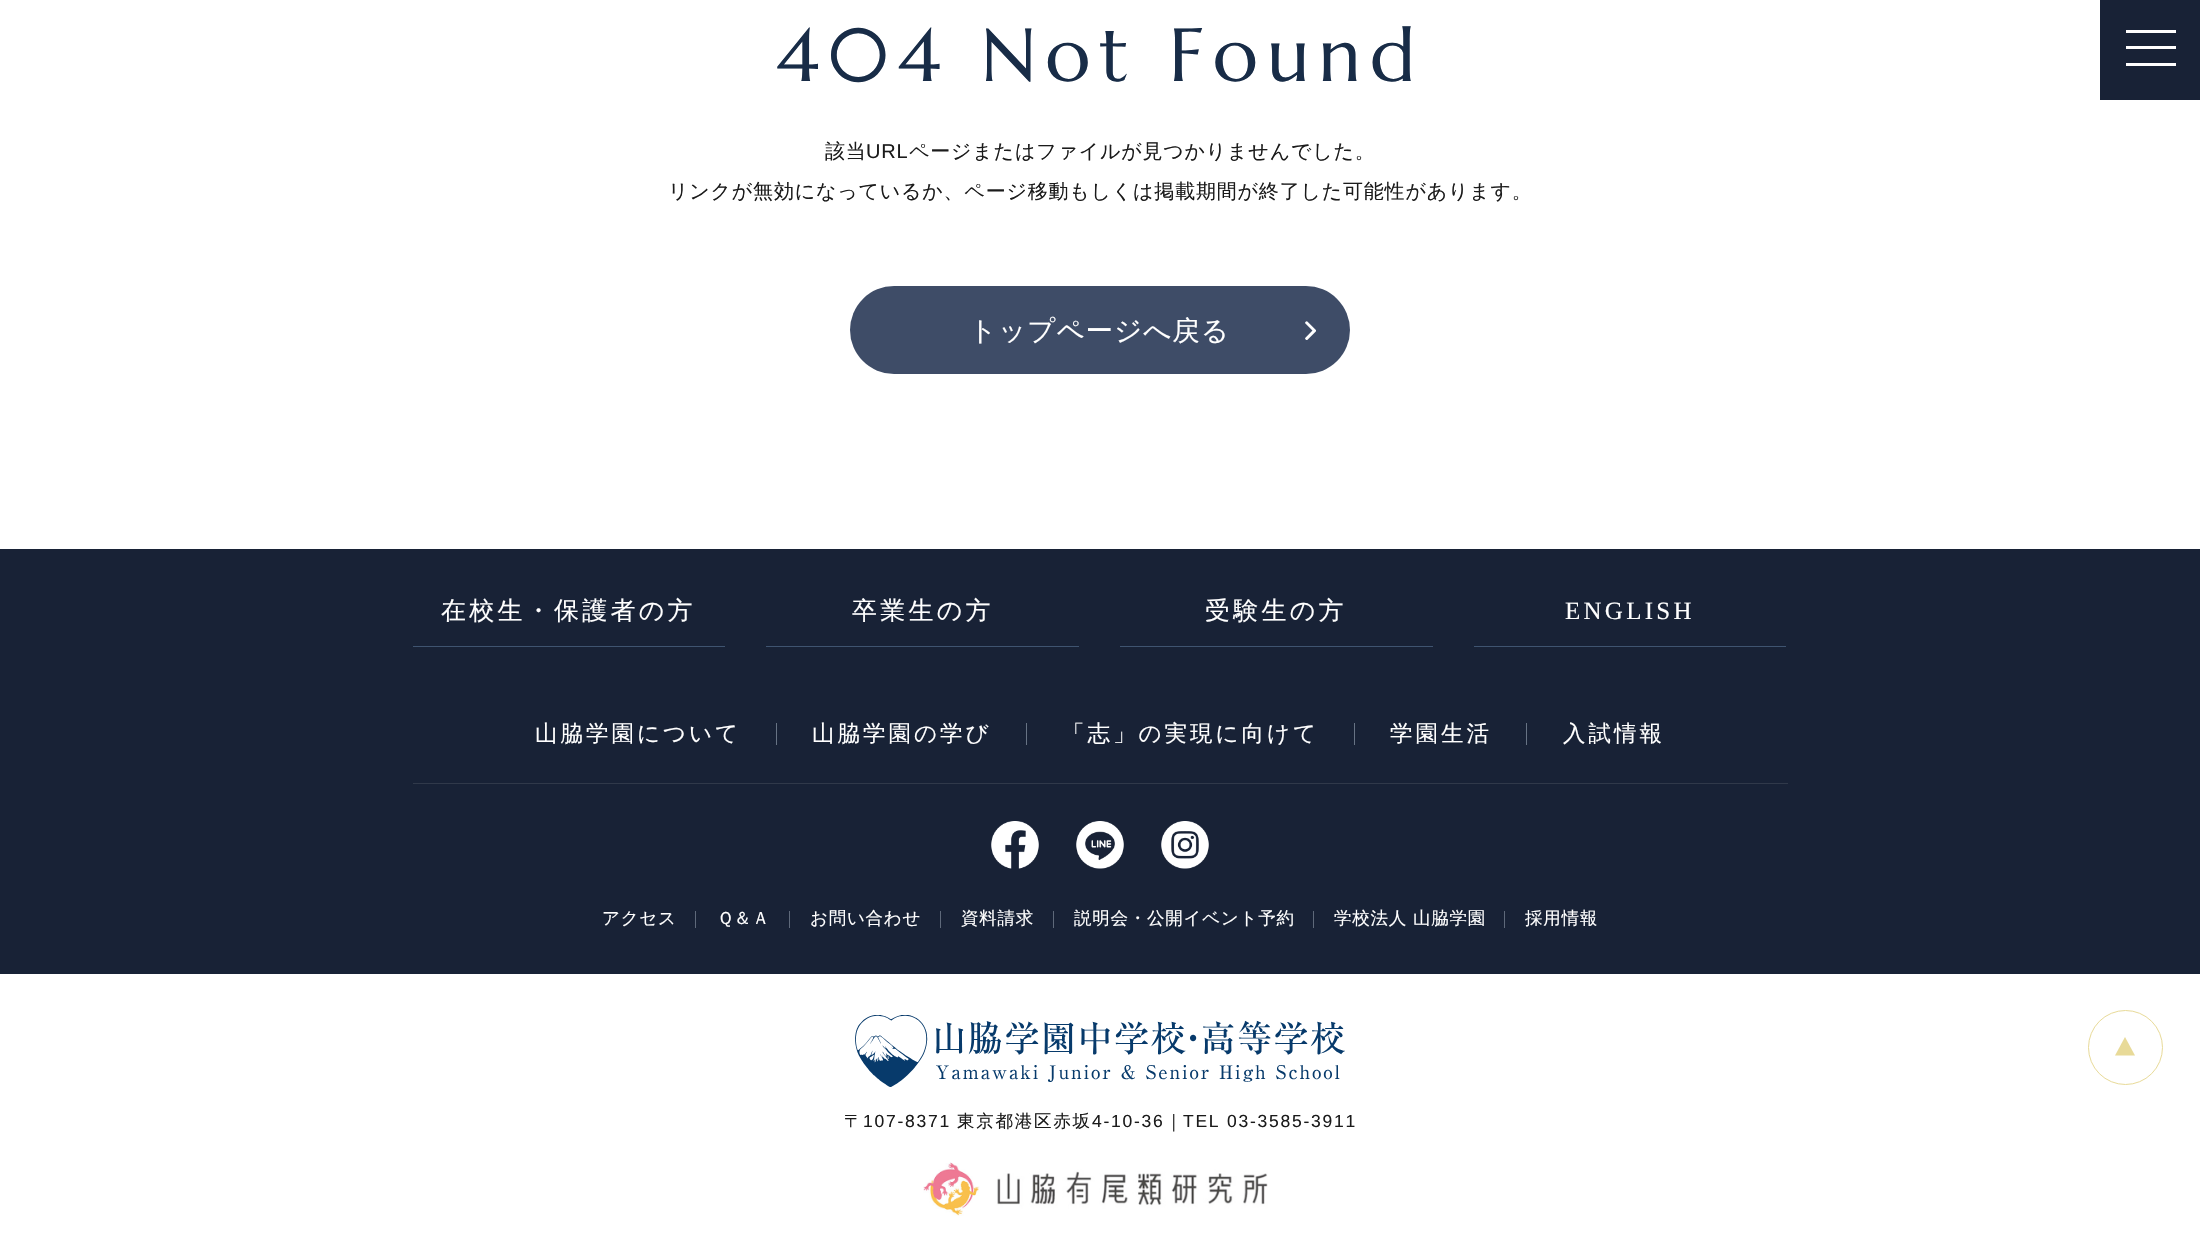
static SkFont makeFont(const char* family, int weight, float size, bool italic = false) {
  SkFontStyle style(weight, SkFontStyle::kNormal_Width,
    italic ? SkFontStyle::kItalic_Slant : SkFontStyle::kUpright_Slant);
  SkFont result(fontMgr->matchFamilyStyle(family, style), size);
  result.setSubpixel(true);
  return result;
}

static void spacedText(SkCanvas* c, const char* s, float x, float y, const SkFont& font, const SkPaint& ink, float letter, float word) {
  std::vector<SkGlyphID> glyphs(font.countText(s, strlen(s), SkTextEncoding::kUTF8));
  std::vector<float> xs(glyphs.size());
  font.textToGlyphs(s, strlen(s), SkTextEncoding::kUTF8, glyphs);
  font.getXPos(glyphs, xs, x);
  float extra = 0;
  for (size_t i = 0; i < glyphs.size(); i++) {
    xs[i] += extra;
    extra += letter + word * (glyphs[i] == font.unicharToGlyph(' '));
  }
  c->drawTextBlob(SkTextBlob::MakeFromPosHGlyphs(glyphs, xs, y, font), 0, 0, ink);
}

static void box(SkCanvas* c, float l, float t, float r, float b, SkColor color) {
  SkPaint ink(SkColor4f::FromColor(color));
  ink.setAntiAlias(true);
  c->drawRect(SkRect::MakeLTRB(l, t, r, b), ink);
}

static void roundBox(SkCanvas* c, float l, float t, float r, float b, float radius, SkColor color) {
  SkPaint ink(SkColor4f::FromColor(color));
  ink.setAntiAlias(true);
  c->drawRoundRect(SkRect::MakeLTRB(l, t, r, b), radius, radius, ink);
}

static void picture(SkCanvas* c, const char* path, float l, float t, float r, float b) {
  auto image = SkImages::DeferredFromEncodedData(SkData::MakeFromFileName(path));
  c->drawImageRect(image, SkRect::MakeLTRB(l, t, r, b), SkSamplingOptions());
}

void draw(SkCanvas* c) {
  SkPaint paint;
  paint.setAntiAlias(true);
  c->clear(0xffffffff);
  SkFont face1 = makeFont("Marcellus", 400, 75);
  paint.setColor(0xff182c47);
  spacedText(c, "404 Not Found", 776, 81, face1, paint, 9, 0);
  SkFont face2 = makeFont("WenQuanYi Zen Hei", 500, 20);
  paint.setColor(0xff1b1b1b);
  spacedText(c, "該当", 825, 158, face2, paint, 0.8f, 0);
  SkFont face3 = makeFont("Liberation Sans", 400, 20);
  spacedText(c, "URL", 866, 158, face3, paint, 0.8f, 0);
  spacedText(c, "ページまたはファイルが見つかりませんでした。", 909, 158, face2, paint, 0.8f, 0);
  spacedText(c, "リンクが無効になっているか、ページ移動もしくは掲載期間が終了した可能性があります。", 668, 198, face2, paint, 0.8f, 0);
  roundBox(c, 850, 286, 1350, 374, 44, 0xff3e4c67);
  SkFont face4 = makeFont("WenQuanYi Zen Hei", 500, 27.5f);
  paint.setColor(0xffffffff);
  spacedText(c, "トップページへ戻る", 969, 340, face4, paint, 1, 0);
  picture(c, "img_01.png", 1305, 321, 1316, 340);
  box(c, 2100, 0, 2200, 100, 0xff182236);
  box(c, 2126, 30, 2176, 33, 0xffffffff);
  box(c, 2126, 46, 2176, 49, 0xffffffff);
  box(c, 2126, 63, 2176, 66, 0xffffffff);
  box(c, 0, 549, 2200, 974, 0xff182236);
  box(c, 413, 646, 725, 647, 0xff3f5470);
  SkFont face5 = makeFont("WenQuanYi Zen Hei", 500, 25);
  spacedText(c, "在校生・保護者の方", 441, 619, face5, paint, 3.25f, 0);
  box(c, 766, 646, 1079, 647, 0xff3f5470);
  spacedText(c, "卒業生の方", 852, 619, face5, paint, 3.25f, 0);
  box(c, 1120, 646, 1433, 647, 0xff3f5470);
  spacedText(c, "受験生の方", 1205, 619, face5, paint, 3.25f, 0);
  box(c, 1474, 646, 1786, 647, 0xff3f5470);
  SkFont face6 = makeFont("Liberation Serif", 400, 25);
  spacedText(c, "ENGLISH", 1565, 619, face6, paint, 3.25f, 0);
  box(c, 413, 783, 1788, 784, 0xff30394a);
  box(c, 776, 723, 777, 745, 0xff677384);
  SkFont face7 = makeFont("WenQuanYi Zen Hei", 500, 22.5f);
  spacedText(c, "⼭脇学園について", 535, 741, face7, paint, 3, 0);
  box(c, 1026, 723, 1027, 745, 0xff677384);
  spacedText(c, "⼭脇学園の学び", 812, 741, face7, paint, 3, 0);
  box(c, 1354, 723, 1355, 745, 0xff677384);
  spacedText(c, "「志」の実現に向けて", 1062, 741, face7, paint, 3, 0);
  box(c, 1526, 723, 1527, 745, 0xff677384);
  spacedText(c, "学園⽣活", 1390, 741, face7, paint, 3, 0);
  spacedText(c, "入試情報", 1563, 741, face7, paint, 3, 0);
  picture(c, "img_02.png", 991, 821, 1039, 869);
  picture(c, "img_03.png", 1076, 821, 1124, 869);
  picture(c, "img_04.png", 1161, 821, 1209, 869);
  SkFont face8 = makeFont("WenQuanYi Zen Hei", 500, 17.5f);
  spacedText(c, "アクセス", 602, 924, face8, paint, 0.75f, 0);
  box(c, 695, 911, 696, 928, 0xff5e697a);
  spacedText(c, "Ｑ＆Ａ", 717, 924, face8, paint, 0.75f, 0);
  box(c, 789, 911, 790, 928, 0xff5e697a);
  spacedText(c, "お問い合わせ", 810, 924, face8, paint, 0.75f, 0);
  box(c, 940, 911, 941, 928, 0xff5e697a);
  spacedText(c, "資料請求", 961, 924, face8, paint, 0.75f, 0);
  box(c, 1053, 911, 1054, 928, 0xff5e697a);
  spacedText(c, "説明会・公開イベント予約", 1074, 924, face8, paint, 0.75f, 0);
  box(c, 1313, 911, 1314, 928, 0xff5e697a);
  spacedText(c, "学校法人 山脇学園", 1334, 924, face8, paint, 0.75f, 0);
  box(c, 1504, 911, 1505, 928, 0xff5e697a);
  spacedText(c, "採用情報", 1525, 924, face8, paint, 0.75f, 0);
  picture(c, "img_05.png", 855, 1015, 1345, 1087);
  paint.setStyle(SkPaint::kStroke_Style);
  paint.setStrokeWidth(1);
  paint.setColor(0xffe8da98);
  c->drawCircle(2125.5f, 1047.5f, 37, paint);
  paint.setStyle(SkPaint::kFill_Style);
  c->drawPath(SkPathBuilder().moveTo(2135, 1055.5f).lineTo(2115, 1055.5f).lineTo(2125, 1037).close().detach(), paint);
  paint.setColor(0xff1b1b1b);
  spacedText(c, "〒", 844, 1127, face8, paint, 1.75f, 0);
  SkFont face9 = makeFont("Liberation Sans", 400, 17.5f);
  spacedText(c, "107-8371", 863, 1127, face9, paint, 1.75f, 0);
  spacedText(c, "東京都港区赤坂", 957, 1127, face8, paint, 1.75f, 0);
  spacedText(c, "4-10-36", 1092, 1127, face9, paint, 1.75f, 0);
  spacedText(c, "｜", 1165, 1127, face8, paint, 0.75f, 0);
  spacedText(c, "TEL 03-3585-3911", 1183, 1127, face9, paint, 1.75f, 0);
  picture(c, "img_06.png", 923, 1162, 1268, 1216);
}
